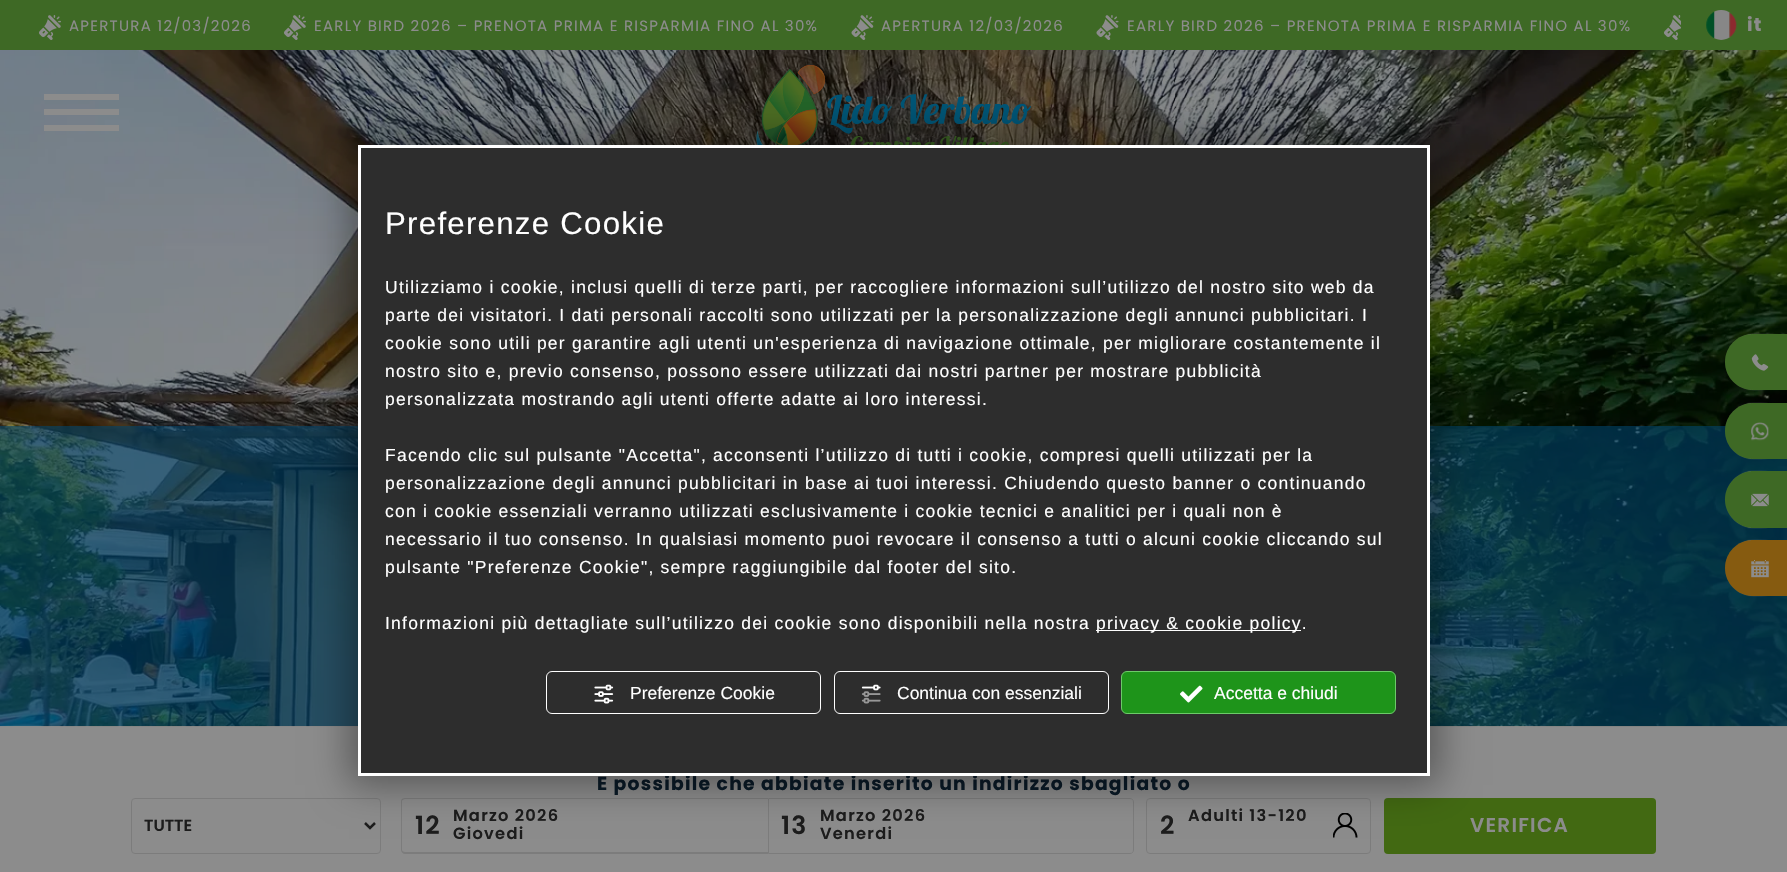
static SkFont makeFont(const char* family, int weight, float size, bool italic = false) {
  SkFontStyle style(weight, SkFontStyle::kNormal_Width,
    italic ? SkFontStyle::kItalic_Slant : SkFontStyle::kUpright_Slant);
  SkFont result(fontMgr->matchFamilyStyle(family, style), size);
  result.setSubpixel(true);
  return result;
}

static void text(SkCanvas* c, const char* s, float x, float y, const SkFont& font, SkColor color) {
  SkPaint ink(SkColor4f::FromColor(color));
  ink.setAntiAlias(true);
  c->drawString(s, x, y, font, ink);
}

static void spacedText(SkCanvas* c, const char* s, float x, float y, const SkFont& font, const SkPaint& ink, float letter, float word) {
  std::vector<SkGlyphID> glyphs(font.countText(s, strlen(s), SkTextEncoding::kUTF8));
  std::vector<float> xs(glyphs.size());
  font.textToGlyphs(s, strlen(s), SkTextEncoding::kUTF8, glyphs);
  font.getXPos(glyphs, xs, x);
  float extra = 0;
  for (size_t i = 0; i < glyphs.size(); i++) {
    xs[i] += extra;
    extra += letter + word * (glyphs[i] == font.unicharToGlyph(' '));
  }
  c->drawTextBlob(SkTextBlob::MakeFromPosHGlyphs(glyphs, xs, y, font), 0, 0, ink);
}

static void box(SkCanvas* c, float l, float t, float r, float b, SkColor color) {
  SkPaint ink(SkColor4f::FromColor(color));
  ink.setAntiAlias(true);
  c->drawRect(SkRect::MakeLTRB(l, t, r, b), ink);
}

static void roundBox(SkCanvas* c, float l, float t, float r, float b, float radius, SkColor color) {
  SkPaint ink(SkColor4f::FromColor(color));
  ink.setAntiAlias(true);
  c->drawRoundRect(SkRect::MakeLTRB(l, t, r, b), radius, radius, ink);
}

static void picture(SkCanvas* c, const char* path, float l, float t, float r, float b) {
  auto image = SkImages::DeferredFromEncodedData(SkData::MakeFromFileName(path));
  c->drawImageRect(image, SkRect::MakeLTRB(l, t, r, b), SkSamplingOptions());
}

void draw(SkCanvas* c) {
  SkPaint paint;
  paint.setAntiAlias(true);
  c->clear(0xff8c8c8c);
  box(c, 0, 0, 1787, 50, 0xff3e6925);
  picture(c, "img_01.png", 39, 15, 61, 40);
  SkFont face1 = makeFont("Poppins", 400, 15);
  paint.setColor(0xff8c8c8c);
  spacedText(c, "APERTURA 12/03/2026", 69, 31, face1, paint, 1.25f, 0);
  picture(c, "img_01.png", 284, 15, 306, 40);
  spacedText(c, "EARLY BIRD 2026 – PRENOTA PRIMA E RISPARMIA FINO AL 30%", 314, 31, face1, paint, 1.25f, 0);
  picture(c, "img_02.png", 851, 15, 874, 40);
  spacedText(c, "APERTURA 12/03/2026", 881, 31, face1, paint, 1.25f, 0);
  picture(c, "img_02.png", 1096, 15, 1119, 40);
  spacedText(c, "EARLY BIRD 2026 – PRENOTA PRIMA E RISPARMIA FINO AL 30%", 1127, 31, face1, paint, 1.25f, 0);
  picture(c, "img_03.png", 1664, 15, 1681, 40);
  picture(c, "img_04.png", 1706, 10, 1737, 40);
  SkFont face2 = makeFont("Poppins", 700, 18.75f);
  spacedText(c, "it", 1747, 31, face2, paint, 1.25f, 0);
  picture(c, "img_11.png", 0, 50, 1787, 727);
  box(c, 44, 94, 119, 100, 0xff8c8c8c);
  box(c, 44, 109, 119, 115, 0xff8c8c8c);
  box(c, 44, 125, 119, 131, 0xff8c8c8c);
  picture(c, "img_05.png", 756, 65, 1031, 145);
  paint.setMaskFilter(SkMaskFilter::MakeBlur(kNormal_SkBlurStyle, 0.5f));
  c->drawRoundRect(SkRect::MakeLTRB(1726, 334, 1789, 390), 28, 28, paint);
  paint.setMaskFilter(nullptr);
  paint.setColor(0xff3e6925);
  c->drawPath(SkPathBuilder().moveTo(1753, 334).lineTo(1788, 334).lineTo(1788, 390).lineTo(1753, 390).cubicTo(1737.5f, 390, 1725, 377.5f, 1725, 362).cubicTo(1725, 346.5f, 1737.5f, 334, 1753, 334).close().detach(), paint);
  box(c, 1751, 334, 1752, 390, 0xff3e6925);
  picture(c, "img_06.png", 1751, 354, 1769, 371);
  box(c, 0, 426, 1787, 726, 0x9900446c);
  paint.setColor(0xff8c8c8c);
  paint.setMaskFilter(SkMaskFilter::MakeBlur(kNormal_SkBlurStyle, 0.5f));
  c->drawRoundRect(SkRect::MakeLTRB(1726, 403, 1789, 459), 28, 28, paint);
  paint.setMaskFilter(nullptr);
  paint.setColor(0xff3e6925);
  c->drawPath(SkPathBuilder().moveTo(1753, 403).lineTo(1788, 403).lineTo(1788, 459).lineTo(1753, 459).cubicTo(1737.5f, 459, 1725, 446.5f, 1725, 431).cubicTo(1725, 415.5f, 1737.5f, 403, 1753, 403).close().detach(), paint);
  box(c, 1751, 403, 1752, 459, 0xff3e6925);
  picture(c, "img_07.png", 1751, 422, 1769, 441);
  paint.setColor(0xff8c8c8c);
  paint.setMaskFilter(SkMaskFilter::MakeBlur(kNormal_SkBlurStyle, 0.5f));
  c->drawRoundRect(SkRect::MakeLTRB(1726, 471, 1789, 528), 28.5f, 28.5f, paint);
  paint.setMaskFilter(nullptr);
  paint.setColor(0xff3e6925);
  c->drawPath(SkPathBuilder().moveTo(1753.5f, 471).lineTo(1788, 471).lineTo(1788, 528).lineTo(1753.5f, 528).cubicTo(1738, 528, 1725, 515, 1725, 499.5f).cubicTo(1725, 484, 1738, 471, 1753.5f, 471).close().detach(), paint);
  box(c, 1751, 471, 1753, 528, 0xff3e6925);
  picture(c, "img_08.png", 1751, 493, 1769, 507);
  paint.setColor(0xff8c8c8c);
  paint.setMaskFilter(SkMaskFilter::MakeBlur(kNormal_SkBlurStyle, 0.5f));
  c->drawRoundRect(SkRect::MakeLTRB(1726, 540, 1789, 596), 28, 28, paint);
  paint.setMaskFilter(nullptr);
  paint.setColor(0xff865b10);
  c->drawPath(SkPathBuilder().moveTo(1753, 540).lineTo(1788, 540).lineTo(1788, 596).lineTo(1753, 596).cubicTo(1737.5f, 596, 1725, 583.5f, 1725, 568).cubicTo(1725, 552.5f, 1737.5f, 540, 1753, 540).close().detach(), paint);
  box(c, 1751, 540, 1753, 596, 0xff865b10);
  picture(c, "img_09.png", 1751, 560, 1769, 578);
  paint.setStyle(SkPaint::kStroke_Style);
  paint.setStrokeWidth(1);
  paint.setColor(0xff7c7c7c);
  c->drawRoundRect(SkRect::MakeLTRB(131.5f, 798.5f, 380.5f, 853.5f), 3.5f, 3.5f, paint);
  paint.setStrokeWidth(2.5f);
  paint.setColor(0xff1c1c1c);
  c->drawPath(SkPathBuilder().moveTo(365, 823).lineTo(370, 828).lineTo(375, 823).detach(), paint);
  SkFont face3 = makeFont("Poppins", 600, 16.25f);
  text(c, "TUTTE", 144, 831, face3, 0xff1c1c1c);
  paint.setStyle(SkPaint::kFill_Style);
  paint.setColor(0xff7c7c7c);
  c->drawPath(SkPathBuilder(SkPathFillType::kEvenOdd).moveTo(405, 798).lineTo(768, 798).lineTo(768, 854).lineTo(405, 854).cubicTo(403, 854, 401, 852, 401, 850).lineTo(401, 801).cubicTo(401, 799, 403, 798, 405, 798).close().moveTo(405, 799).lineTo(768, 799).lineTo(768, 852).lineTo(405, 852).cubicTo(404, 852, 402, 851, 402, 850).lineTo(402, 801).cubicTo(402, 800, 404, 799, 405, 799).close().detach(), paint);
  SkFont face4 = makeFont("Poppins", 600, 25);
  paint.setColor(0xff1c1c1c);
  spacedText(c, "12", 415, 834, face4, paint, 1.25f, 0);
  spacedText(c, "Marzo 2026", 453, 821, face3, paint, 1.25f, 0);
  spacedText(c, "Giovedi", 453, 839, face3, paint, 1.25f, 0);
  paint.setStyle(SkPaint::kStroke_Style);
  paint.setStrokeWidth(1);
  paint.setColor(0xff7c7c7c);
  c->drawPath(SkPathBuilder().moveTo(768.5f, 798.5f).lineTo(1130, 798.5f).cubicTo(1132, 798.5f, 1133.5f, 800, 1133.5f, 802).lineTo(1133.5f, 850).cubicTo(1133.5f, 852, 1132, 853.5f, 1130, 853.5f).lineTo(768.5f, 853.5f).close().detach(), paint);
  paint.setStyle(SkPaint::kFill_Style);
  paint.setColor(0xff1c1c1c);
  spacedText(c, "13", 781, 834, face4, paint, 1.25f, 0);
  spacedText(c, "Marzo 2026", 820, 821, face3, paint, 1.25f, 0);
  spacedText(c, "Venerdi", 820, 839, face3, paint, 1.25f, 0);
  paint.setStyle(SkPaint::kStroke_Style);
  paint.setColor(0xff7c7c7c);
  c->drawRoundRect(SkRect::MakeLTRB(1146.5f, 798.5f, 1370.5f, 853.5f), 3.5f, 3.5f, paint);
  paint.setStyle(SkPaint::kFill_Style);
  paint.setColor(0xff1c1c1c);
  spacedText(c, "2", 1160, 834, face4, paint, 1.25f, 0);
  spacedText(c, "Adulti 13-120", 1188, 821, face3, paint, 1.25f, 0);
  picture(c, "img_10.png", 1333, 813, 1358, 838);
  roundBox(c, 1384, 798, 1656, 854, 4, 0xff426912);
  SkFont face5 = makeFont("Poppins", 600, 20);
  paint.setColor(0xff8c8c8c);
  spacedText(c, "VERIFICA", 1470, 832, face5, paint, 1.25f, 0);
  paint.setColor(0xff0a1a27);
  spacedText(c, "È possibile che abbiate inserito un indirizzo sbagliato o", 597, 790, face2, paint, 1.25f, 0);
  paint.setColor(0x61000000);
  paint.setMaskFilter(SkMaskFilter::MakeBlur(kNormal_SkBlurStyle, 18));
  c->drawRect(SkRect::MakeLTRB(349, 136, 1439, 785), paint);
  paint.setMaskFilter(nullptr);
  paint.setColor(0xff2d2d2d);
  c->drawRect(SkRect::MakeLTRB(359.5f, 146.5f, 1428.5f, 774.5f), paint);
  paint.setStyle(SkPaint::kStroke_Style);
  paint.setStrokeWidth(3);
  paint.setColor(0xffffffff);
  c->drawRect(SkRect::MakeLTRB(359.5f, 146.5f, 1428.5f, 774.5f), paint);
  SkFont face6 = makeFont("Liberation Sans", 400, 31.25f);
  paint.setStyle(SkPaint::kFill_Style);
  spacedText(c, "Preferenze Cookie", 385, 234, face6, paint, 1.25f, 0);
  SkFont face7 = makeFont("Liberation Sans", 400, 17.5f);
  spacedText(c, "Utilizziamo i cookie, inclusi quelli di terze parti, per raccogliere informazioni sull’utilizzo del nostro sito web da", 385, 293, face7, paint, 1.25f, 0);
  spacedText(c, "parte dei visitatori. I dati personali raccolti sono utilizzati per la personalizzazione degli annunci pubblicitari. I", 385, 321, face7, paint, 1.25f, 0);
  spacedText(c, "cookie sono utili per garantire agli utenti un'esperienza di navigazione ottimale, per migliorare costantemente il", 385, 349, face7, paint, 1.25f, 0);
  spacedText(c, "nostro sito e, previo consenso, possono essere utilizzati dai nostri partner per mostrare pubblicità", 385, 377, face7, paint, 1.25f, 0);
  spacedText(c, "personalizzata mostrando agli utenti offerte adatte ai loro interessi.", 385, 405, face7, paint, 1.25f, 0);
  spacedText(c, "Facendo clic sul pulsante \"Accetta\", acconsenti l’utilizzo di tutti i cookie, compresi quelli utilizzati per la", 385, 461, face7, paint, 1.25f, 0);
  spacedText(c, "personalizzazione degli annunci pubblicitari in base ai tuoi interessi. Chiudendo questo banner o continuando", 385, 489, face7, paint, 1.25f, 0);
  spacedText(c, "con i cookie essenziali verranno utilizzati esclusivamente i cookie tecnici e analitici per i quali non è", 385, 517, face7, paint, 1.25f, 0);
  spacedText(c, "necessario il tuo consenso. In qualsiasi momento puoi revocare il consenso a tutti o alcuni cookie cliccando sul", 385, 545, face7, paint, 1.25f, 0);
  spacedText(c, "pulsante \"Preferenze Cookie\", sempre raggiungibile dal footer del sito.", 385, 573, face7, paint, 1.25f, 0);
  spacedText(c, "Informazioni più dettagliate sull’utilizzo dei cookie sono disponibili nella nostra", 385, 629, face7, paint, 1.25f, 0);
  box(c, 1096, 630, 1301, 631, 0xffffffff);
  spacedText(c, "privacy & cookie policy.", 1096, 629, face7, paint, 1.25f, 0);
  paint.setStyle(SkPaint::kStroke_Style);
  paint.setStrokeWidth(1);
  c->drawRoundRect(SkRect::MakeLTRB(546.5f, 671.5f, 820.5f, 713.5f), 5.5f, 5.5f, paint);
  picture(c, "img_12.png", 594, 684, 614, 704);
  text(c, "Preferenze Cookie", 630, 699, face7, 0xffffffff);
  c->drawRoundRect(SkRect::MakeLTRB(834.5f, 671.5f, 1108.5f, 713.5f), 5.5f, 5.5f, paint);
  picture(c, "img_13.png", 861, 684, 881, 704);
  text(c, "Continua con essenziali", 897, 699, face7, 0xffffffff);
  paint.setStyle(SkPaint::kFill_Style);
  paint.setColor(0xff1e941a);
  c->drawRoundRect(SkRect::MakeLTRB(1121.5f, 671.5f, 1395.5f, 713.5f), 5.5f, 5.5f, paint);
  paint.setStyle(SkPaint::kStroke_Style);
  paint.setColor(0xff6cca69);
  c->drawRoundRect(SkRect::MakeLTRB(1121.5f, 671.5f, 1395.5f, 713.5f), 5.5f, 5.5f, paint);
  picture(c, "img_14.png", 1180, 685, 1203, 703);
  text(c, "Accetta e chiudi", 1214, 699, face7, 0xffffffff);
}
